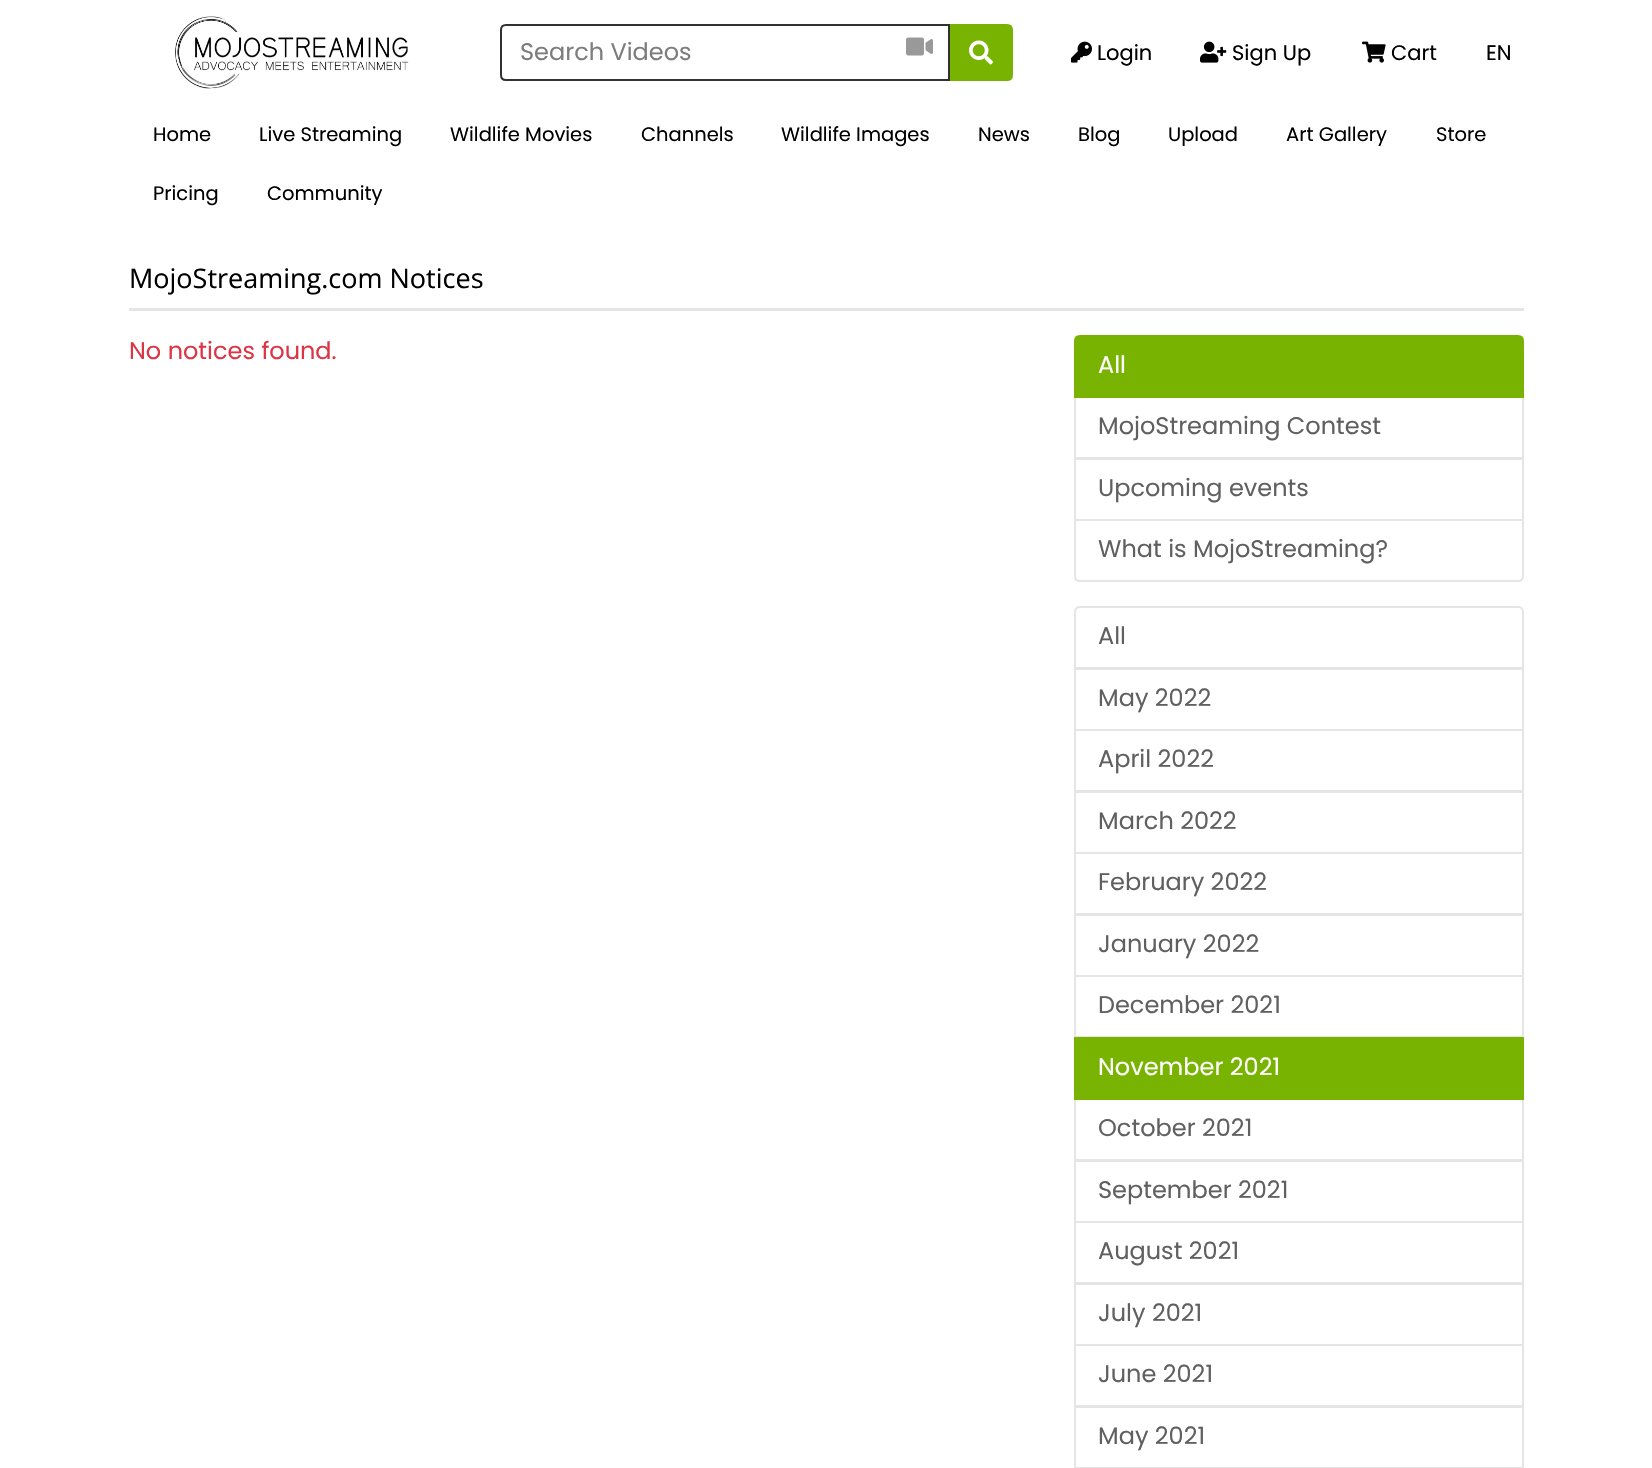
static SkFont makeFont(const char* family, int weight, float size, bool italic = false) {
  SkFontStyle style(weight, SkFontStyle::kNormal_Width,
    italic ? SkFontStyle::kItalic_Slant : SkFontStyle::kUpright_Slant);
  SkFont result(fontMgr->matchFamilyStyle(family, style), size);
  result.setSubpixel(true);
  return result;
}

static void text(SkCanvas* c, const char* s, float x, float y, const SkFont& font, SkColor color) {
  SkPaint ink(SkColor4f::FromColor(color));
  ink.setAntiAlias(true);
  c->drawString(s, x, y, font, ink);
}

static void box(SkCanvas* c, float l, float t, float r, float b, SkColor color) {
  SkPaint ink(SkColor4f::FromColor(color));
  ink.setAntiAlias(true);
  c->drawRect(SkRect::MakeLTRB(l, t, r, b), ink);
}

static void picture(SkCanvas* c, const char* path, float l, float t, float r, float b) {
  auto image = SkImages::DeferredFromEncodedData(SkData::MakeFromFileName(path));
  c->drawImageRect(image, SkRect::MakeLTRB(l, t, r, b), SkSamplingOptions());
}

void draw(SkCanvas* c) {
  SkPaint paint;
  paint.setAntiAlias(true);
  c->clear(0xffffffff);
  picture(c, "img_01.png", 175, 16, 409, 89);
  paint.setStyle(SkPaint::kStroke_Style);
  paint.setStrokeWidth(2);
  paint.setColor(0xff313131);
  c->drawPath(SkPathBuilder().moveTo(506, 25).lineTo(949, 25).lineTo(949, 80).lineTo(506, 80).cubicTo(503, 80, 501, 78, 501, 75).lineTo(501, 30).cubicTo(501, 27, 503, 25, 506, 25).close().detach(), paint);
  SkFont face1 = makeFont("Poppins", 400, 24);
  text(c, "Search Videos", 520, 60, face1, 0xff7d7d7d);
  picture(c, "img_02.png", 906, 37, 933, 56);
  paint.setStyle(SkPaint::kFill_Style);
  paint.setColor(0xff77b300);
  c->drawPath(SkPathBuilder().moveTo(951, 25).lineTo(1007, 25).cubicTo(1010, 25, 1012, 27, 1012, 30).lineTo(1012, 75).cubicTo(1012, 78, 1010, 80, 1007, 80).lineTo(951, 80).close().detach(), paint);
  paint.setStyle(SkPaint::kStroke_Style);
  c->drawPath(SkPathBuilder().moveTo(951, 25).lineTo(1007, 25).cubicTo(1010, 25, 1012, 27, 1012, 30).lineTo(1012, 75).cubicTo(1012, 78, 1010, 80, 1007, 80).lineTo(951, 80).close().detach(), paint);
  picture(c, "img_03.png", 969, 40, 993, 65);
  picture(c, "img_04.png", 1071, 41, 1092, 63);
  SkFont face2 = makeFont("Poppins", 400, 21);
  text(c, "Login", 1097, 60, face2, 0xff000000);
  picture(c, "img_05.png", 1200, 41, 1227, 63);
  text(c, "Sign Up", 1232, 60, face2, 0xff000000);
  picture(c, "img_06.png", 1362, 41, 1386, 63);
  text(c, "Cart", 1391, 60, face2, 0xff000000);
  text(c, "EN", 1486, 60, face2, 0xff000000);
  SkFont face3 = makeFont("Poppins", 400, 19.5f);
  text(c, "Home", 153, 141, face3, 0xff000000);
  text(c, "Live Streaming", 259, 141, face3, 0xff000000);
  text(c, "Wildlife Movies", 450, 141, face3, 0xff000000);
  text(c, "Channels", 641, 141, face3, 0xff000000);
  text(c, "Wildlife Images", 781, 141, face3, 0xff000000);
  text(c, "News", 978, 141, face3, 0xff000000);
  text(c, "Blog", 1078, 141, face3, 0xff000000);
  text(c, "Upload", 1168, 141, face3, 0xff000000);
  text(c, "Art Gallery", 1286, 141, face3, 0xff000000);
  text(c, "Store", 1436, 141, face3, 0xff000000);
  text(c, "Pricing", 153, 200, face3, 0xff000000);
  text(c, "Community", 267, 200, face3, 0xff000000);
  box(c, 129, 308, 1524, 311, 0xffe5e5e5);
  SkFont face4 = makeFont("Open Sans", 400, 27);
  text(c, "MojoStreaming.com Notices", 129, 288, face4, 0xff000000);
  text(c, "No notices found.", 129, 359, face1, 0xffdc3545);
  paint.setColor(0xffe5e5e5);
  c->drawRect(SkRect::MakeLTRB(1075, 397, 1523, 458), paint);
  paint.setStyle(SkPaint::kFill_Style);
  paint.setColor(0xff77b300);
  c->drawPath(SkPathBuilder().moveTo(1080, 336).lineTo(1518, 336).cubicTo(1521, 336, 1523, 338, 1523, 341).lineTo(1523, 397).lineTo(1075, 397).lineTo(1075, 341).cubicTo(1075, 338, 1077, 336, 1080, 336).close().detach(), paint);
  paint.setStyle(SkPaint::kStroke_Style);
  c->drawPath(SkPathBuilder().moveTo(1080, 336).lineTo(1518, 336).cubicTo(1521, 336, 1523, 338, 1523, 341).lineTo(1523, 397).lineTo(1075, 397).lineTo(1075, 341).cubicTo(1075, 338, 1077, 336, 1080, 336).close().detach(), paint);
  text(c, "All", 1098, 373, face1, 0xffffffff);
  text(c, "MojoStreaming Contest", 1098, 434, face1, 0xff606060);
  paint.setColor(0xffe5e5e5);
  c->drawRect(SkRect::MakeLTRB(1075, 459, 1523, 520), paint);
  text(c, "Upcoming events", 1098, 496, face1, 0xff606060);
  paint.setStyle(SkPaint::kFill_Style);
  paint.setColor(0xffffffff);
  c->drawPath(SkPathBuilder().moveTo(1075, 520).lineTo(1523, 520).lineTo(1523, 576).cubicTo(1523, 579, 1521, 581, 1518, 581).lineTo(1080, 581).cubicTo(1077, 581, 1075, 579, 1075, 576).close().detach(), paint);
  paint.setStyle(SkPaint::kStroke_Style);
  paint.setColor(0xffe5e5e5);
  c->drawPath(SkPathBuilder().moveTo(1075, 520).lineTo(1523, 520).lineTo(1523, 576).cubicTo(1523, 579, 1521, 581, 1518, 581).lineTo(1080, 581).cubicTo(1077, 581, 1075, 579, 1075, 576).close().detach(), paint);
  text(c, "What is MojoStreaming?", 1098, 557, face1, 0xff606060);
  c->drawPath(SkPathBuilder().moveTo(1080, 607).lineTo(1518, 607).cubicTo(1521, 607, 1523, 609, 1523, 612).lineTo(1523, 668).lineTo(1075, 668).lineTo(1075, 612).cubicTo(1075, 609, 1077, 607, 1080, 607).close().detach(), paint);
  text(c, "All", 1098, 644, face1, 0xff606060);
  c->drawRect(SkRect::MakeLTRB(1075, 669, 1523, 730), paint);
  text(c, "May 2022", 1098, 706, face1, 0xff606060);
  c->drawRect(SkRect::MakeLTRB(1075, 730, 1523, 791), paint);
  text(c, "April 2022", 1098, 767, face1, 0xff606060);
  c->drawRect(SkRect::MakeLTRB(1075, 792, 1523, 853), paint);
  text(c, "March 2022", 1098, 829, face1, 0xff606060);
  c->drawRect(SkRect::MakeLTRB(1075, 853, 1523, 914), paint);
  text(c, "February 2022", 1098, 890, face1, 0xff606060);
  c->drawRect(SkRect::MakeLTRB(1075, 915, 1523, 976), paint);
  text(c, "January 2022", 1098, 952, face1, 0xff606060);
  c->drawRect(SkRect::MakeLTRB(1075, 976, 1523, 1037), paint);
  text(c, "December 2021", 1098, 1013, face1, 0xff606060);
  c->drawRect(SkRect::MakeLTRB(1075, 1099, 1523, 1160), paint);
  box(c, 1074, 1037, 1524, 1100, 0xff77b300);
  text(c, "November 2021", 1098, 1075, face1, 0xffffffff);
  text(c, "October 2021", 1098, 1136, face1, 0xff606060);
  c->drawRect(SkRect::MakeLTRB(1075, 1161, 1523, 1222), paint);
  text(c, "September 2021", 1098, 1198, face1, 0xff606060);
  c->drawRect(SkRect::MakeLTRB(1075, 1222, 1523, 1283), paint);
  text(c, "August 2021", 1098, 1259, face1, 0xff606060);
  c->drawRect(SkRect::MakeLTRB(1075, 1284, 1523, 1345), paint);
  text(c, "July 2021", 1098, 1321, face1, 0xff606060);
  c->drawRect(SkRect::MakeLTRB(1075, 1345, 1523, 1406), paint);
  text(c, "June 2021", 1098, 1382, face1, 0xff606060);
  c->drawRect(SkRect::MakeLTRB(1075, 1407, 1523, 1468), paint);
  text(c, "May 2021", 1098, 1444, face1, 0xff606060);
}
